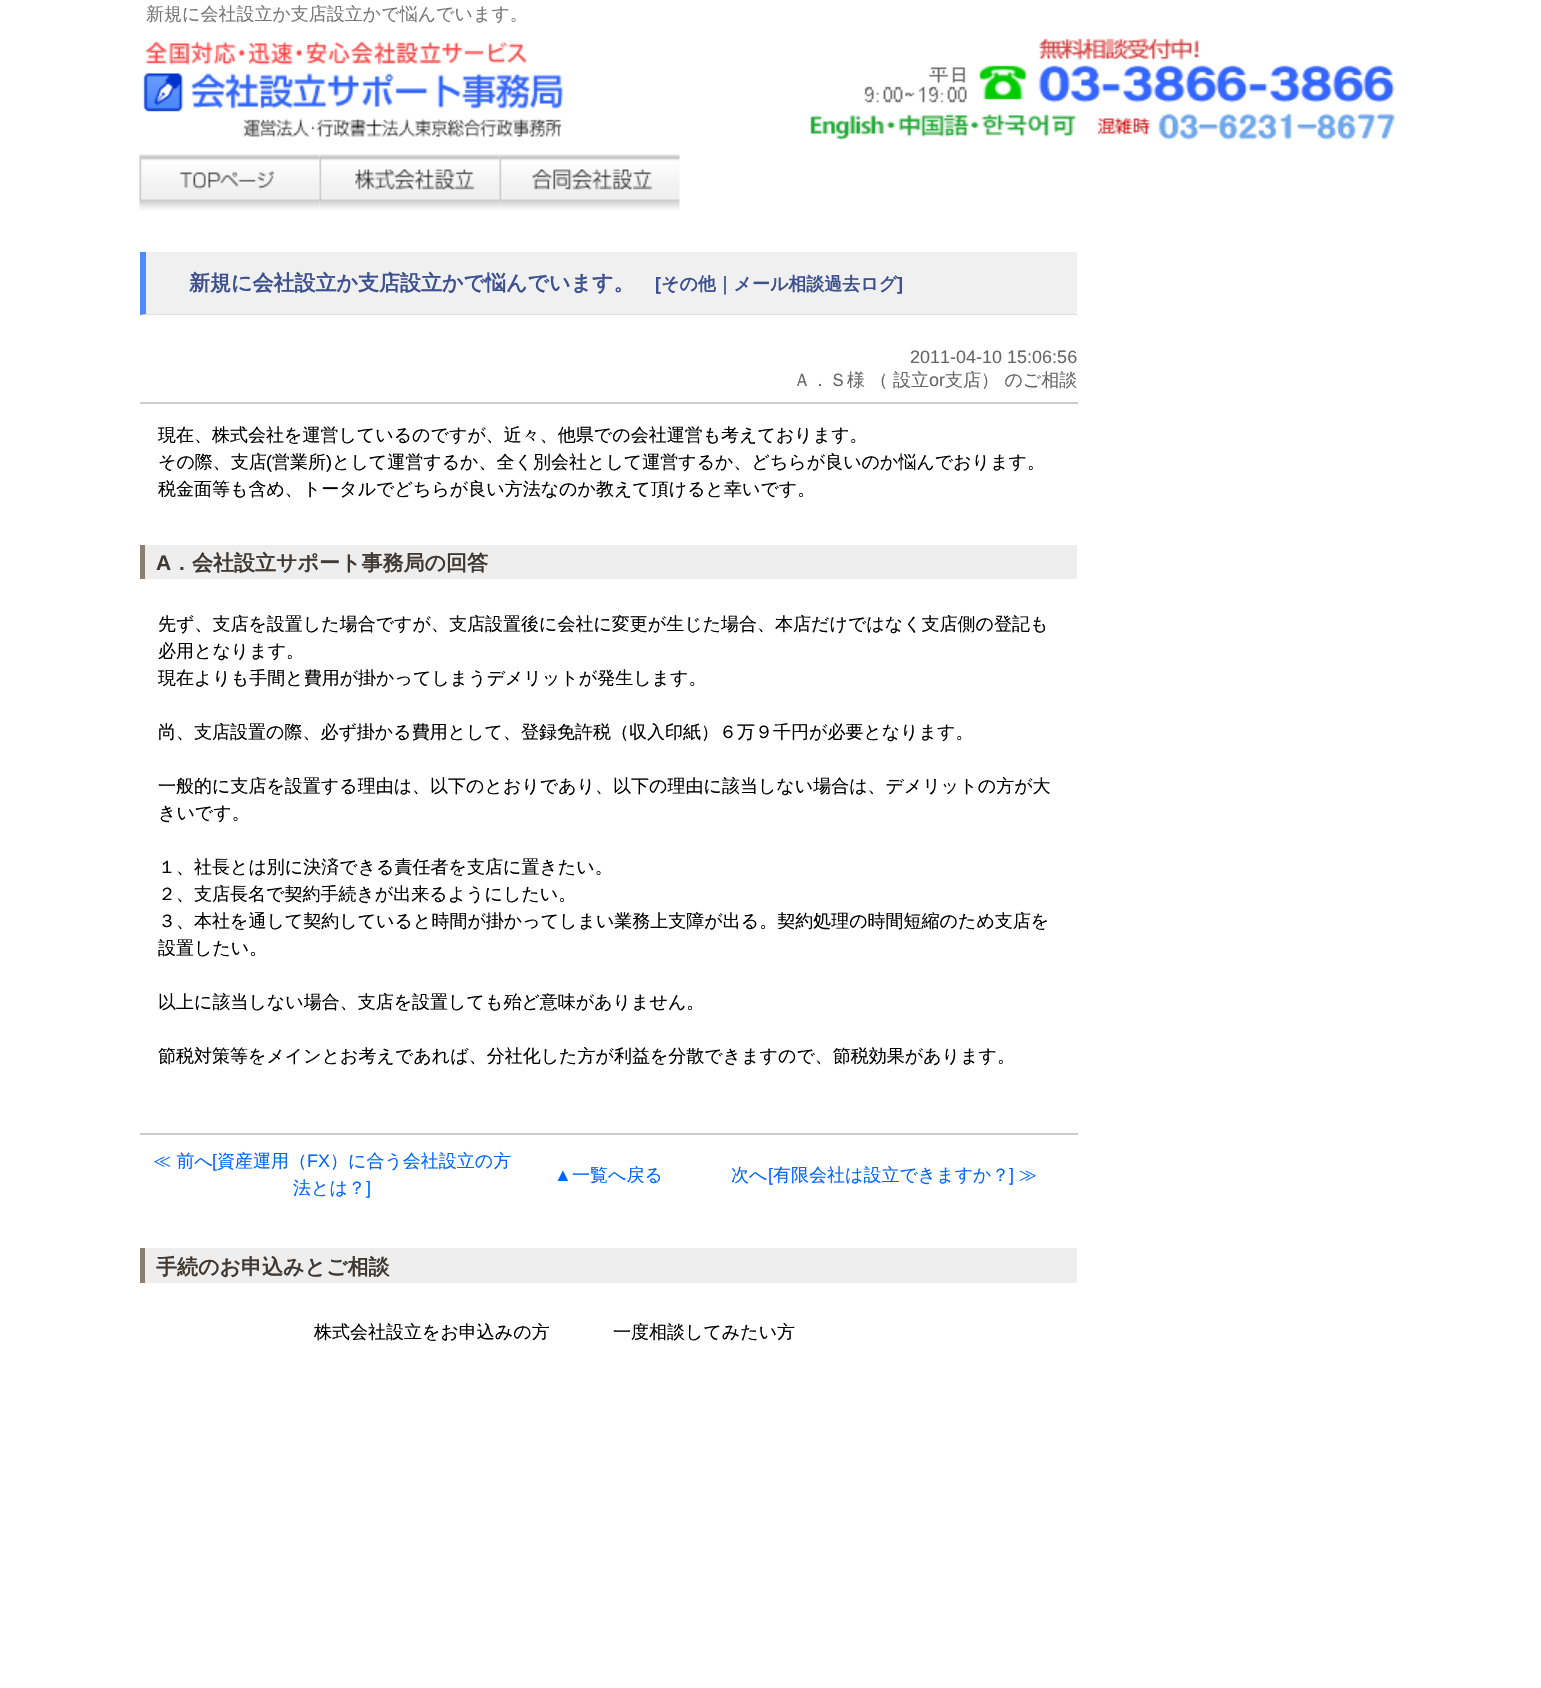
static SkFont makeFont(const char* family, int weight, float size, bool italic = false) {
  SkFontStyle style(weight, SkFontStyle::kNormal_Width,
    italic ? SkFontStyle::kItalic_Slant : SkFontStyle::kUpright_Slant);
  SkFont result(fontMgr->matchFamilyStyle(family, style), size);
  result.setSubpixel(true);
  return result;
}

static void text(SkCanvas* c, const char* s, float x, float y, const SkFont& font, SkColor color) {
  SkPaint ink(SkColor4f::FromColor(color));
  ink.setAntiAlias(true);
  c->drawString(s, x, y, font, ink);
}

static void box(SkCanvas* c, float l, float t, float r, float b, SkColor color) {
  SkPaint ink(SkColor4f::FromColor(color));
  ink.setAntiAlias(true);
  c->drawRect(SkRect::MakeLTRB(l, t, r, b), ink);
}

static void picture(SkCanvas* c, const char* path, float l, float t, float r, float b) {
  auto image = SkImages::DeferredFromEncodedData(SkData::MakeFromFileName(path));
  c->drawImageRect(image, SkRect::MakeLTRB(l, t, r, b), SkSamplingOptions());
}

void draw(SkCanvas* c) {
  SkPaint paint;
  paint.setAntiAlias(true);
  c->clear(0xffffffff);
  SkFont face1 = makeFont("WenQuanYi Zen Hei", 500, 18);
  text(c, "新規に会社設立か支店設立かで悩んでいます。", 146, 20, face1, 0xff777777);
  picture(c, "img_01.png", 143, 41, 563, 137);
  picture(c, "img_02.png", 810, 38, 1395, 140);
  picture(c, "img_03.png", 139, 154, 320, 211);
  picture(c, "img_04.png", 319, 154, 500, 211);
  picture(c, "img_05.png", 499, 154, 680, 211);
  box(c, 140, 252, 1077, 315, 0xfff0f0f0);
  paint.setColor(0xffdddddd);
  c->drawPath(SkPathBuilder().moveTo(1077, 315).lineTo(140, 315).lineTo(146, 314).lineTo(1077, 314).close().detach(), paint);
  paint.setColor(0xff508aff);
  c->drawPath(SkPathBuilder().moveTo(140, 315).lineTo(140, 252).lineTo(146, 252).lineTo(146, 314).close().detach(), paint);
  SkFont face2 = makeFont("WenQuanYi Zen Hei", 700, 21);
  text(c, "新規に会社設立か支店設立かで悩んでいます。", 189, 290, face2, 0xff3d518f);
  SkFont face3 = makeFont("Liberation Sans", 700, 18);
  text(c, "[", 655, 290, face3, 0xff3d518f);
  SkFont face4 = makeFont("WenQuanYi Zen Hei", 700, 18);
  text(c, "その他｜メール相談過去ログ", 661, 290, face4, 0xff3d518f);
  text(c, "]", 897, 290, face3, 0xff3d518f);
  SkFont face5 = makeFont("Liberation Sans", 400, 18);
  text(c, "2011-04-10 15:06:56", 910, 363, face5, 0xff666666);
  text(c, "Ａ．Ｓ様", 793, 386, face1, 0xff666666);
  text(c, "（", 870, 386, face1, 0xff666666);
  text(c, "設立", 893, 386, face1, 0xff666666);
  text(c, "or", 929, 386, face5, 0xff666666);
  text(c, "支店） のご相談", 945, 386, face1, 0xff666666);
  box(c, 140, 402, 1078, 404, 0xffcccccc);
  text(c, "現在、株式会社を運営しているのですが、近々、他県での会社運営も考えております。", 158, 441, face1, 0xff000000);
  text(c, "その際、支店", 158, 468, face1, 0xff000000);
  text(c, "(", 266, 468, face5, 0xff000000);
  text(c, "営業所", 272, 468, face1, 0xff000000);
  text(c, ")", 326, 468, face5, 0xff000000);
  text(c, "として運営するか、全く別会社として運営するか、どちらが良いのか悩んでおります。", 332, 468, face1, 0xff000000);
  text(c, "税金面等も含め、トータルでどちらが良い方法なのか教えて頂けると幸いです。", 158, 495, face1, 0xff000000);
  box(c, 145, 545, 1077, 579, 0xffeeeeee);
  box(c, 140, 545, 145, 579, 0xff8d7e72);
  SkFont face6 = makeFont("Liberation Sans", 700, 21);
  text(c, "A", 156, 570, face6, 0xff413a34);
  text(c, "．会社設立サポート事務局の回答", 171, 570, face2, 0xff413a34);
  text(c, "先ず、支店を設置した場合ですが、支店設置後に会社に変更が生じた場合、本店だけではなく支店側の登記も", 158, 630, face1, 0xff000000);
  text(c, "必用となります。", 158, 657, face1, 0xff000000);
  text(c, "現在よりも手間と費用が掛かってしまうデメリットが発生します。", 158, 684, face1, 0xff000000);
  text(c, "尚、支店設置の際、必ず掛かる費用として、登録免許税（収入印紙）６万９千円が必要となります。", 158, 738, face1, 0xff000000);
  text(c, "一般的に支店を設置する理由は、以下のとおりであり、以下の理由に該当しない場合は、デメリットの方が大", 158, 792, face1, 0xff000000);
  text(c, "きいです。", 158, 819, face1, 0xff000000);
  text(c, "１、社長とは別に決済できる責任者を支店に置きたい。", 158, 873, face1, 0xff000000);
  text(c, "２、支店長名で契約手続きが出来るようにしたい。", 158, 900, face1, 0xff000000);
  text(c, "３、本社を通して契約していると時間が掛かってしまい業務上支障が出る。契約処理の時間短縮のため支店を", 158, 927, face1, 0xff000000);
  text(c, "設置したい。", 158, 954, face1, 0xff000000);
  text(c, "以上に該当しない場合、支店を設置しても殆ど意味がありません。", 158, 1008, face1, 0xff000000);
  text(c, "節税対策等をメインとお考えであれば、分社化した方が利益を分散できますので、節税効果があります。", 158, 1062, face1, 0xff000000);
  box(c, 140, 1133, 1078, 1135, 0xffcccccc);
  text(c, "≪ 前へ", 153, 1167, face1, 0xff0066ff);
  text(c, "[", 212, 1167, face5, 0xff0066ff);
  text(c, "資産運用（", 217, 1167, face1, 0xff0066ff);
  text(c, "FX", 307, 1167, face5, 0xff0066ff);
  text(c, "）に合う会社設立の方", 330, 1167, face1, 0xff0066ff);
  text(c, "法とは？", 293, 1194, face1, 0xff0066ff);
  text(c, "]", 366, 1194, face5, 0xff0066ff);
  text(c, "▲", 554, 1181, face5, 0xff0066ff);
  text(c, "一覧へ戻る", 572, 1181, face1, 0xff0066ff);
  text(c, "次へ", 731, 1181, face1, 0xff0066ff);
  text(c, "[", 768, 1181, face5, 0xff0066ff);
  text(c, "有限会社は設立できますか？", 773, 1181, face1, 0xff0066ff);
  text(c, "]", 1009, 1181, face5, 0xff0066ff);
  text(c, "≫", 1019, 1181, face1, 0xff0066ff);
  box(c, 145, 1248, 1077, 1283, 0xffeeeeee);
  box(c, 140, 1248, 145, 1283, 0xff8d7e72);
  text(c, "手続のお申込みとご相談", 156, 1274, face2, 0xff413a34);
  text(c, "株式会社設立をお申込みの方", 314, 1338, face1, 0xff000000);
  text(c, "一度相談してみたい方", 613, 1338, face1, 0xff000000);
}
